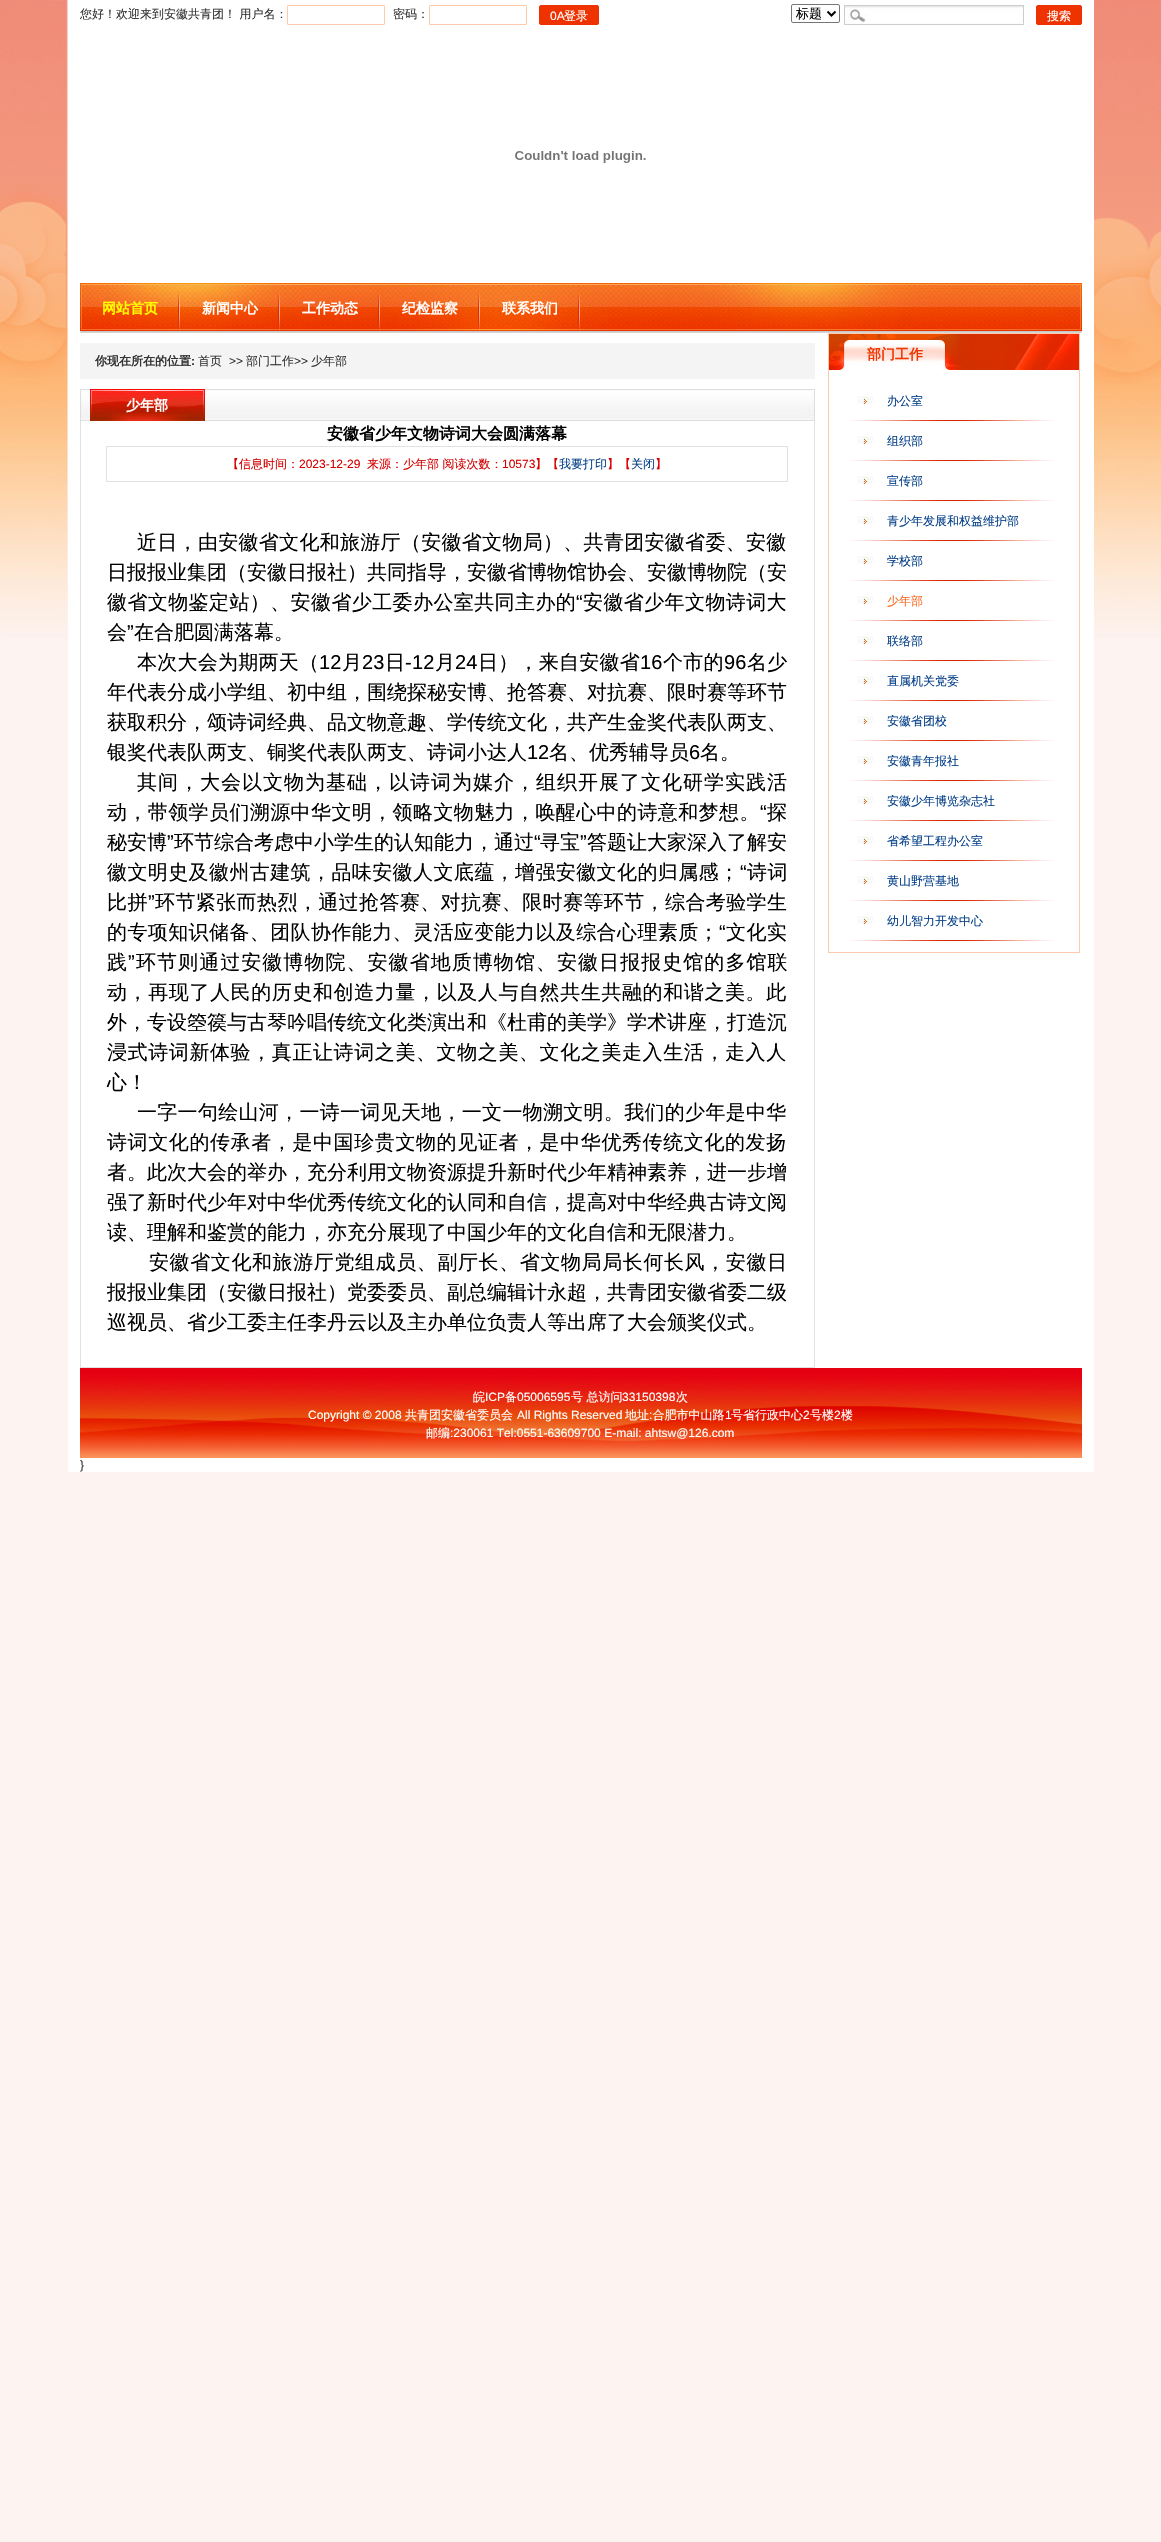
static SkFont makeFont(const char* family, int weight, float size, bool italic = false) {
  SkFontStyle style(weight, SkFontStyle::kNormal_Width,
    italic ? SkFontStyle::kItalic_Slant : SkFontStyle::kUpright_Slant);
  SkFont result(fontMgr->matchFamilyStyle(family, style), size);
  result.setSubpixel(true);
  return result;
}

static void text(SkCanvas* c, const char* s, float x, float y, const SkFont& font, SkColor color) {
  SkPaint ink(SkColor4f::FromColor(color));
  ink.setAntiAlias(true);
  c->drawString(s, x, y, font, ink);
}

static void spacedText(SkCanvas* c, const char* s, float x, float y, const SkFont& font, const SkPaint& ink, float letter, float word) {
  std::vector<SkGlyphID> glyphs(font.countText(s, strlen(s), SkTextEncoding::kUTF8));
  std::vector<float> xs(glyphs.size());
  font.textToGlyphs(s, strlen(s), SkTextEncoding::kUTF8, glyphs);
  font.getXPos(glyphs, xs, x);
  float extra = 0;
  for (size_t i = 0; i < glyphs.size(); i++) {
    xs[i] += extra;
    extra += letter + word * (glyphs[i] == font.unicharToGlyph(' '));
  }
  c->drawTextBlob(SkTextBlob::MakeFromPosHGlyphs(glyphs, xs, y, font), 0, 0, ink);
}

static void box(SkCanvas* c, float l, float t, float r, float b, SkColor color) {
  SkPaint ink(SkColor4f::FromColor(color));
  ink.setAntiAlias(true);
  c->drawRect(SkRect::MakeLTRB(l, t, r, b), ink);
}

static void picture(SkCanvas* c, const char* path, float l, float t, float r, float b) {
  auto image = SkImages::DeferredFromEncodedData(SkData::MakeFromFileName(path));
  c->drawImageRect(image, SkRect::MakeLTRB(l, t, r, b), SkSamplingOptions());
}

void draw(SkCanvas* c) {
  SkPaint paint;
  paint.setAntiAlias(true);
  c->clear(0xfffdf3f1);
  picture(c, "img_01.png", 0, 0, 1161, 638);
  box(c, 68, 0, 1094, 1472, 0xffffffff);
  SkFont face1 = makeFont("WenQuanYi Zen Hei", 500, 12);
  text(c, "您好！欢迎来到安徽共青团！ 用户名：", 80, 18, face1, 0xff333333);
  paint.setStyle(SkPaint::kStroke_Style);
  paint.setStrokeWidth(1);
  paint.setColor(0xfffecaab);
  c->drawRoundRect(SkRect::MakeLTRB(287.5f, 5.5f, 384.5f, 24.5f), 0.5f, 0.5f, paint);
  text(c, "密码：", 393, 18, face1, 0xff333333);
  c->drawRoundRect(SkRect::MakeLTRB(429.5f, 5.5f, 526.5f, 24.5f), 0.5f, 0.5f, paint);
  paint.setStyle(SkPaint::kFill_Style);
  paint.setColor(0xffee3300);
  c->drawRoundRect(SkRect::MakeLTRB(539.5f, 5.5f, 598.5f, 24.5f), 1.5f, 1.5f, paint);
  paint.setStyle(SkPaint::kStroke_Style);
  paint.setColor(0xffec3201);
  c->drawRoundRect(SkRect::MakeLTRB(539.5f, 5.5f, 598.5f, 24.5f), 1.5f, 1.5f, paint);
  SkFont face2 = makeFont("Liberation Sans", 400, 12);
  text(c, "0A", 550, 20, face2, 0xffffffff);
  text(c, "登录", 564, 20, face1, 0xffffffff);
  paint.setColor(0xff767676);
  c->drawRoundRect(SkRect::MakeLTRB(791.5f, 4.5f, 839.5f, 22.5f), 1.5f, 1.5f, paint);
  paint.setStrokeWidth(2);
  paint.setColor(0xff000000);
  c->drawPath(SkPathBuilder().moveTo(827.5f, 11.5f).lineTo(831.5f, 15.5f).lineTo(835.5f, 11.5f).detach(), paint);
  SkFont face3 = makeFont("WenQuanYi Zen Hei", 500, 13);
  text(c, "标题", 796, 18, face3, 0xff000000);
  picture(c, "img_02.png", 844, 5, 1024, 25);
  paint.setStyle(SkPaint::kFill_Style);
  paint.setColor(0xffee3300);
  c->drawRoundRect(SkRect::MakeLTRB(1036.5f, 5.5f, 1081.5f, 24.5f), 1.5f, 1.5f, paint);
  paint.setStyle(SkPaint::kStroke_Style);
  paint.setStrokeWidth(1);
  paint.setColor(0xffec3201);
  c->drawRoundRect(SkRect::MakeLTRB(1036.5f, 5.5f, 1081.5f, 24.5f), 1.5f, 1.5f, paint);
  text(c, "搜索", 1047, 20, face1, 0xffffffff);
  picture(c, "img_03.png", 515, 151, 646, 163);
  picture(c, "img_04.png", 80, 283, 1082, 333);
  picture(c, "img_05.png", 178, 292, 180, 331);
  SkFont face4 = makeFont("WenQuanYi Zen Hei", 700, 14);
  text(c, "网站首页", 102, 313, face4, 0xffffff00);
  picture(c, "img_06.png", 278, 292, 280, 331);
  text(c, "新闻中心", 202, 313, face4, 0xffffffff);
  picture(c, "img_07.png", 378, 292, 380, 331);
  text(c, "工作动态", 302, 313, face4, 0xffffffff);
  picture(c, "img_08.png", 478, 292, 480, 331);
  text(c, "纪检监察", 402, 313, face4, 0xffffffff);
  picture(c, "img_09.png", 578, 292, 580, 331);
  text(c, "联系我们", 502, 313, face4, 0xffffffff);
  box(c, 80, 343, 815, 379, 0xfff4f4f4);
  SkFont face5 = makeFont("WenQuanYi Zen Hei", 700, 12);
  text(c, "你现在所在的位置", 95, 365, face5, 0xff333333);
  SkFont face6 = makeFont("Liberation Sans", 700, 12);
  text(c, ":", 191, 365, face6, 0xff333333);
  text(c, "首页", 198, 365, face1, 0xff333333);
  text(c, ">>", 229, 365, face2, 0xff333333);
  text(c, "部门工作", 246, 365, face1, 0xff333333);
  text(c, ">>", 294, 365, face2, 0xff333333);
  text(c, "少年部", 311, 365, face1, 0xff333333);
  picture(c, "img_10.png", 205, 389, 815, 421);
  picture(c, "img_11.png", 80, 389, 205, 421);
  text(c, "少年部", 126, 410, face4, 0xffffffff);
  box(c, 814, 421, 815, 1368, 0xffe1e1e1);
  box(c, 80, 1367, 815, 1368, 0xffe1e1e1);
  box(c, 80, 421, 81, 1368, 0xffe1e1e1);
  SkFont face7 = makeFont("WenQuanYi Zen Hei", 700, 16);
  text(c, "安徽省少年文物诗词大会圆满落幕", 327, 439, face7, 0xff000000);
  paint.setColor(0xffe1e1e1);
  c->drawRect(SkRect::MakeLTRB(106.5f, 446.5f, 787.5f, 481.5f), paint);
  text(c, "【信息时间：", 227, 468, face1, 0xffd50000);
  text(c, "2023-12-29", 299, 468, face2, 0xffd50000);
  text(c, "来源：少年部 阅读次数：", 367, 468, face1, 0xffd50000);
  text(c, "10573", 502, 468, face2, 0xffd50000);
  text(c, "】【", 535, 468, face1, 0xffd50000);
  text(c, "我要打印", 559, 468, face1, 0xff054089);
  text(c, "】【", 607, 468, face1, 0xffd50000);
  text(c, "关闭", 631, 468, face1, 0xff054089);
  text(c, "】", 655, 468, face1, 0xffd50000);
  SkFont face8 = makeFont("WenQuanYi Zen Hei", 500, 20);
  paint.setStyle(SkPaint::kFill_Style);
  paint.setColor(0xff000000);
  spacedText(c, "近日，由安徽省文化和旅游厅（安徽省文物局）、共青团安徽省委、安徽", 137, 549, face8, paint, 0.3f, 0);
  text(c, "日报报业集团（安徽日报社）共同指导，安徽省博物馆协会、安徽博物院（安", 107, 579, face8, 0xff000000);
  spacedText(c, "徽省文物鉴定站）、安徽省少工委办公室共同主办的", 107, 609, face8, paint, 0.4f, 0);
  SkFont face9 = makeFont("Liberation Sans", 400, 20);
  spacedText(c, "“", 576, 609, face9, paint, 0.4f, 0);
  spacedText(c, "安徽省少年文物诗词大", 583, 609, face8, paint, 0.4f, 0);
  text(c, "会", 107, 639, face8, 0xff000000);
  text(c, "”", 127, 639, face9, 0xff000000);
  text(c, "在合肥圆满落幕。", 134, 639, face8, 0xff000000);
  spacedText(c, "本次大会为期两天（", 137, 669, face8, paint, 0.25f, 0);
  spacedText(c, "12", 319, 669, face9, paint, 0.25f, 0);
  spacedText(c, "月", 342, 669, face8, paint, 0.25f, 0);
  spacedText(c, "23", 362, 669, face9, paint, 0.25f, 0);
  spacedText(c, "日", 385, 669, face8, paint, 0.25f, 0);
  spacedText(c, "-12", 405, 669, face9, paint, 0.25f, 0);
  spacedText(c, "月", 435, 669, face8, paint, 0.25f, 0);
  spacedText(c, "24", 455, 669, face9, paint, 0.25f, 0);
  spacedText(c, "日），来自安徽省", 478, 669, face8, paint, 0.25f, 0);
  spacedText(c, "16", 640, 669, face9, paint, 0.25f, 0);
  spacedText(c, "个市的", 663, 669, face8, paint, 0.25f, 0);
  spacedText(c, "96", 724, 669, face9, paint, 0.25f, 0);
  spacedText(c, "名少", 747, 669, face8, paint, 0.25f, 0);
  text(c, "年代表分成小学组、初中组，围绕探秘安博、抢答赛、对抗赛、限时赛等环节", 107, 699, face8, 0xff000000);
  text(c, "获取积分，颂诗词经典、品文物意趣、学传统文化，共产生金奖代表队两支、", 107, 729, face8, 0xff000000);
  text(c, "银奖代表队两支、铜奖代表队两支、诗词小达人", 107, 759, face8, 0xff000000);
  text(c, "12", 527, 759, face9, 0xff000000);
  text(c, "名、优秀辅导员", 549, 759, face8, 0xff000000);
  text(c, "6", 689, 759, face9, 0xff000000);
  text(c, "名。", 700, 759, face8, 0xff000000);
  spacedText(c, "其间，大会以文物为基础，以诗词为媒介，组织开展了文化研学实践活", 137, 789, face8, paint, 1, 0);
  spacedText(c, "动，带领学员们溯源中华文明，领略文物魅力，唤醒心中的诗意和梦想。", 107, 819, face8, paint, 0.4f, 0);
  spacedText(c, "“", 760, 819, face9, paint, 0.4f, 0);
  spacedText(c, "探", 767, 819, face8, paint, 0.4f, 0);
  text(c, "秘安博", 107, 849, face8, 0xff000000);
  text(c, "”", 167, 849, face9, 0xff000000);
  text(c, "环节综合考虑中小学生的认知能力，通过", 174, 849, face8, 0xff000000);
  text(c, "“", 534, 849, face9, 0xff000000);
  text(c, "寻宝", 540, 849, face8, 0xff000000);
  text(c, "”", 580, 849, face9, 0xff000000);
  text(c, "答题让大家深入了解安", 587, 849, face8, 0xff000000);
  spacedText(c, "徽文明史及徽州古建筑，品味安徽人文底蕴，增强安徽文化的归属感；", 107, 879, face8, paint, 0.4f, 0);
  spacedText(c, "“", 740, 879, face9, paint, 0.4f, 0);
  spacedText(c, "诗词", 747, 879, face8, paint, 0.4f, 0);
  spacedText(c, "比拼", 107, 909, face8, paint, 0.4f, 0);
  spacedText(c, "”", 148, 909, face9, paint, 0.4f, 0);
  spacedText(c, "环节紧张而热烈，通过抢答赛、对抗赛、限时赛等环节，综合考验学生", 155, 909, face8, paint, 0.4f, 0);
  spacedText(c, "的专项知识储备、团队协作能力、灵活应变能力以及综合心理素质；", 107, 939, face8, paint, 0.4f, 0);
  spacedText(c, "“", 719, 939, face9, paint, 0.4f, 0);
  spacedText(c, "文化实", 726, 939, face8, paint, 0.4f, 0);
  spacedText(c, "践", 107, 969, face8, paint, 1.05f, 0);
  spacedText(c, "”", 128, 969, face9, paint, 1.05f, 0);
  spacedText(c, "环节则通过安徽博物院、安徽省地质博物馆、安徽日报报史馆的多馆联", 136, 969, face8, paint, 1.05f, 0);
  spacedText(c, "动，再现了人民的历史和创造力量，以及人与自然共生共融的和谐之美。此", 107, 999, face8, paint, 0.6f, 0);
  text(c, "外，专设箜篌与古琴吟唱传统文化类演出和《杜甫的美学》学术讲座，打造沉", 107, 1029, face8, 0xff000000);
  spacedText(c, "浸式诗词新体验，真正让诗词之美、文物之美、文化之美走入生活，走入人", 107, 1059, face8, paint, 0.6f, 0);
  text(c, "心！", 107, 1089, face8, 0xff000000);
  spacedText(c, "一字一句绘山河，一诗一词见天地，一文一物溯文明。我们的少年是中华", 137, 1119, face8, paint, 0.3f, 0);
  spacedText(c, "诗词文化的传承者，是中国珍贵文物的见证者，是中华优秀传统文化的发扬", 107, 1149, face8, paint, 0.6f, 0);
  text(c, "者。此次大会的举办，充分利用文物资源提升新时代少年精神素养，进一步增", 107, 1179, face8, 0xff000000);
  text(c, "强了新时代少年对中华优秀传统文化的认同和自信，提高对中华经典古诗文阅", 107, 1209, face8, 0xff000000);
  text(c, "读、理解和鉴赏的能力，亦充分展现了中国少年的文化自信和无限潜力。", 107, 1239, face8, 0xff000000);
  spacedText(c, "安徽省文化和旅游厅党组成员、副厅长、省文物局局长何长风，安徽日", 149, 1269, face8, paint, 0.6f, 0);
  text(c, "报报业集团（安徽日报社）党委委员、副总编辑计永超，共青团安徽省委二级", 107, 1299, face8, 0xff000000);
  text(c, "巡视员、省少工委主任李丹云以及主办单位负责人等出席了大会颁奖仪式。", 107, 1329, face8, 0xff000000);
  picture(c, "img_12.png", 829, 334, 1079, 370);
  paint.setStyle(SkPaint::kStroke_Style);
  paint.setColor(0xfffecaab);
  c->drawRect(SkRect::MakeLTRB(828.5f, 333.5f, 1079.5f, 952.5f), paint);
  text(c, "部门工作", 867, 359, face4, 0xfff03500);
  picture(c, "img_13.png", 850, 396, 1054, 421);
  text(c, "办公室", 887, 405, face1, 0xff054089);
  picture(c, "img_13.png", 850, 436, 1054, 461);
  text(c, "组织部", 887, 445, face1, 0xff054089);
  picture(c, "img_13.png", 850, 476, 1054, 501);
  text(c, "宣传部", 887, 485, face1, 0xff054089);
  picture(c, "img_13.png", 850, 516, 1054, 541);
  text(c, "青少年发展和权益维护部", 887, 525, face1, 0xff054089);
  picture(c, "img_13.png", 850, 556, 1054, 581);
  text(c, "学校部", 887, 565, face1, 0xff054089);
  picture(c, "img_13.png", 850, 596, 1054, 621);
  text(c, "少年部", 887, 605, face1, 0xfffa6a23);
  picture(c, "img_13.png", 850, 636, 1054, 661);
  text(c, "联络部", 887, 645, face1, 0xff054089);
  picture(c, "img_13.png", 850, 676, 1054, 701);
  text(c, "直属机关党委", 887, 685, face1, 0xff054089);
  picture(c, "img_13.png", 850, 716, 1054, 741);
  text(c, "安徽省团校", 887, 725, face1, 0xff054089);
  picture(c, "img_13.png", 850, 756, 1054, 781);
  text(c, "安徽青年报社", 887, 765, face1, 0xff054089);
  picture(c, "img_13.png", 850, 796, 1054, 821);
  text(c, "安徽少年博览杂志社", 887, 805, face1, 0xff054089);
  picture(c, "img_13.png", 850, 836, 1054, 861);
  text(c, "省希望工程办公室", 887, 845, face1, 0xff054089);
  picture(c, "img_13.png", 850, 876, 1054, 901);
  text(c, "黄山野营基地", 887, 885, face1, 0xff054089);
  picture(c, "img_13.png", 850, 916, 1054, 941);
  text(c, "幼儿智力开发中心", 887, 925, face1, 0xff054089);
  picture(c, "img_14.png", 80, 1368, 1082, 1458);
  text(c, "皖", 473, 1401, face1, 0xffffffff);
  text(c, "ICP", 485, 1401, face2, 0xffffffff);
  text(c, "备", 505, 1401, face1, 0xffffffff);
  text(c, "05006595", 517, 1401, face2, 0xffffffff);
  text(c, "号 总访问", 571, 1401, face1, 0xffffffff);
  text(c, "33150398", 622, 1401, face2, 0xffffffff);
  text(c, "次", 676, 1401, face1, 0xffffffff);
  text(c, "Copyright © 2008", 308, 1419, face2, 0xffffffff);
  text(c, "共青团安徽省委员会", 405, 1419, face1, 0xffffffff);
  text(c, "All Rights Reserved", 517, 1419, face2, 0xffffffff);
  text(c, "地址 合肥市中山路", 625, 1419, face1, 0xffffffff);
  text(c, "1", 725, 1419, face2, 0xffffffff);
  text(c, "号省行政中心", 731, 1419, face1, 0xffffffff);
  text(c, "2", 803, 1419, face2, 0xffffffff);
  text(c, "号楼", 810, 1419, face1, 0xffffffff);
  text(c, "2", 834, 1419, face2, 0xffffffff);
  text(c, "楼", 841, 1419, face1, 0xffffffff);
  text(c, ":", 649, 1419, face2, 0xffffffff);
  text(c, "邮编", 426, 1437, face1, 0xffffffff);
  text(c, ":230061 Tel:0551-63609700 E-mail: ahtsw@126.com", 450, 1437, face2, 0xffffffff);
  c->save();
  c->clipRect(SkRect::MakeLTRB(80, 0, 1082, 1472));
  text(c, "}", 80, 1469, face2, 0xff333333);
  c->restore();
}
